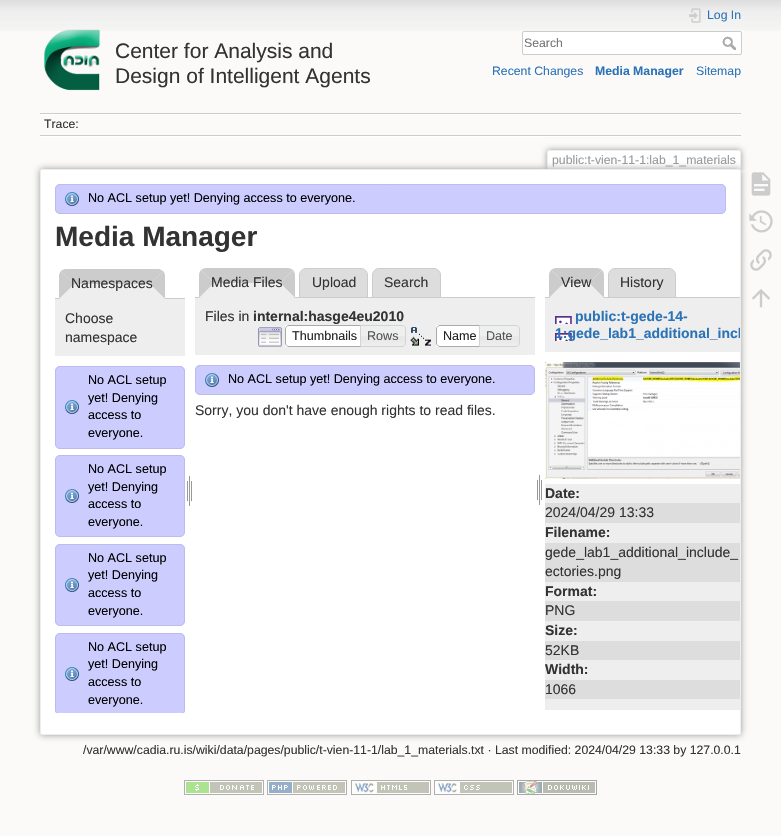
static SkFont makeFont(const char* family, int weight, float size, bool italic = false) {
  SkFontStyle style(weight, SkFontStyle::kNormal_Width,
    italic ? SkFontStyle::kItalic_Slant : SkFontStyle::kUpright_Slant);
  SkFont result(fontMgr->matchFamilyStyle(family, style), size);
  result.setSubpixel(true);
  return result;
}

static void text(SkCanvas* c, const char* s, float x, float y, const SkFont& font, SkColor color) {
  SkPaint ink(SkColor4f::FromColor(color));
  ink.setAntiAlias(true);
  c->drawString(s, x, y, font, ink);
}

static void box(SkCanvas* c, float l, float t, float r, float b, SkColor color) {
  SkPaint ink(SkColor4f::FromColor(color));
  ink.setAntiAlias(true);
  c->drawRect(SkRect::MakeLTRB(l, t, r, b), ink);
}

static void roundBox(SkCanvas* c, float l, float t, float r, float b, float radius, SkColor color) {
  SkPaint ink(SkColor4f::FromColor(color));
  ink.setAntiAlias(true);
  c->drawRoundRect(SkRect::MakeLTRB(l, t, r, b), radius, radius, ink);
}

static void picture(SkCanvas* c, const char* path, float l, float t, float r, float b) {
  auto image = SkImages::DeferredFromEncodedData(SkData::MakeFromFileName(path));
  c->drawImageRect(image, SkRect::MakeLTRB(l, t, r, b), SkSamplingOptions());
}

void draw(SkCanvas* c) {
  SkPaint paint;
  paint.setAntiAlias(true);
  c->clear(0xfffbfaf9);
  picture(c, "img_01.png", 0, 0, 781, 31);
  picture(c, "img_02.png", 44, 29, 101, 91);
  SkFont face1 = makeFont("Liberation Sans", 400, 21);
  text(c, "Center for Analysis and", 115, 58, face1, 0xff333333);
  text(c, "Design of Intelligent Agents", 115, 83, face1, 0xff333333);
  picture(c, "img_03.png", 689, 8, 701, 23);
  SkFont face2 = makeFont("Liberation Sans", 400, 12.25f);
  text(c, "Log In", 707, 19, face2, 0xff2b73b7);
  paint.setColor(0xffffffff);
  c->drawRoundRect(SkRect::MakeLTRB(522.5f, 31.5f, 741.5f, 54.5f), 1.5f, 1.5f, paint);
  paint.setStyle(SkPaint::kStroke_Style);
  paint.setStrokeWidth(1);
  paint.setColor(0xffcccccc);
  c->drawRoundRect(SkRect::MakeLTRB(522.5f, 31.5f, 741.5f, 54.5f), 1.5f, 1.5f, paint);
  text(c, "Search", 524, 47, face2, 0xff757575);
  picture(c, "img_04.png", 722, 36, 736, 50);
  text(c, "Recent Changes", 492, 75, face2, 0xff2b73b7);
  SkFont face3 = makeFont("Liberation Sans", 700, 12.25f);
  text(c, "Media Manager", 595, 75, face3, 0xff2b73b7);
  text(c, "Sitemap", 696, 75, face2, 0xff2b73b7);
  box(c, 40, 113, 741, 114, 0xffcccccc);
  box(c, 40, 136, 741, 137, 0xffffffff);
  box(c, 40, 114, 741, 115, 0xffffffff);
  box(c, 40, 135, 741, 136, 0xffcccccc);
  text(c, "Trace:", 44, 128, face2, 0xff333333);
  c->save();
  c->clipRect(SkRect::MakeLTRB(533, 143, 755, 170));
  paint.setStyle(SkPaint::kFill_Style);
  paint.setColor(0xff999999);
  paint.setMaskFilter(SkMaskFilter::MakeBlur(kNormal_SkBlurStyle, 3));
  c->drawRoundRect(SkRect::MakeLTRB(547, 150, 741, 170), 2, 2, paint);
  paint.setMaskFilter(nullptr);
  c->restore();
  paint.setColor(0xffffffff);
  c->drawPath(SkPathBuilder().moveTo(549, 151).lineTo(739, 151).cubicTo(739.5f, 151, 740, 151.5f, 740, 152).lineTo(740, 170).lineTo(548, 170).lineTo(548, 152).cubicTo(548, 151.5f, 548.5f, 151, 549, 151).close().detach(), paint);
  box(c, 548, 150, 740, 151, 0xffeeeeee);
  box(c, 740, 151, 741, 170, 0xffeeeeee);
  box(c, 547, 151, 548, 170, 0xffeeeeee);
  text(c, "public:t-vien-11-1:lab_1_materials", 552, 164, face2, 0xff999999);
  paint.setColor(0xff999999);
  paint.setMaskFilter(SkMaskFilter::MakeBlur(kNormal_SkBlurStyle, 3.5f));
  c->drawRoundRect(SkRect::MakeLTRB(40, 169, 741, 735), 2, 2, paint);
  paint.setMaskFilter(nullptr);
  paint.setColor(0xffffffff);
  c->drawRoundRect(SkRect::MakeLTRB(40.5f, 169.5f, 740.5f, 734.5f), 1.5f, 1.5f, paint);
  paint.setStyle(SkPaint::kStroke_Style);
  paint.setColor(0xffeeeeee);
  c->drawRoundRect(SkRect::MakeLTRB(40.5f, 169.5f, 740.5f, 734.5f), 1.5f, 1.5f, paint);
  roundBox(c, 55, 184, 726, 214, 5, 0xffccccff);
  picture(c, "img_05.png", 65, 192, 79, 206);
  paint.setColor(0xffbbbbee);
  c->drawRoundRect(SkRect::MakeLTRB(55.5f, 184.5f, 725.5f, 213.5f), 4.5f, 4.5f, paint);
  SkFont face4 = makeFont("Liberation Sans", 400, 12.6f);
  text(c, "No ACL setup yet! Denying access to everyone.", 88, 202, face4, 0xff000000);
  SkFont face5 = makeFont("Liberation Sans", 700, 28);
  text(c, "Media Manager", 55, 246, face5, 0xff333333);
  box(c, 55, 298, 185, 299, 0xffcccccc);
  paint.setStyle(SkPaint::kFill_Style);
  paint.setColor(0xffeeeeee);
  c->drawPath(SkPathBuilder().moveTo(66, 269).lineTo(158, 269).cubicTo(162, 269, 165, 272, 165, 276).lineTo(165, 299).lineTo(59, 299).lineTo(59, 276).cubicTo(59, 272, 62, 269, 66, 269).close().detach(), paint);
  paint.setColor(0xffcccccc);
  c->drawPath(SkPathBuilder().moveTo(66, 269).lineTo(159, 269).lineTo(163, 271).lineTo(150, 284).lineTo(74, 284).lineTo(61, 271).cubicTo(62, 270, 64, 269, 66, 269).close().detach(), paint);
  c->drawPath(SkPathBuilder().moveTo(163, 271).lineTo(150, 284).lineTo(165, 299).lineTo(165, 276).cubicTo(165, 274, 164, 272, 163, 271).close().detach(), paint);
  paint.setColor(0xffeeeeee);
  c->drawPath(SkPathBuilder().moveTo(165, 299).lineTo(150, 284).lineTo(74, 284).lineTo(59, 299).close().detach(), paint);
  paint.setColor(0xffcccccc);
  c->drawPath(SkPathBuilder().moveTo(59, 299).lineTo(59, 276).cubicTo(59, 274, 60, 272, 61, 271).lineTo(74, 284).close().detach(), paint);
  SkFont face6 = makeFont("Liberation Sans", 400, 14);
  text(c, "Namespaces", 71, 288, face6, 0xff333333);
  box(c, 55, 299, 185, 356, 0xffeeeeee);
  text(c, "Choose", 65, 323, face6, 0xff333333);
  text(c, "namespace", 65, 342, face6, 0xff333333);
  roundBox(c, 55, 366, 185, 449, 5, 0xffccccff);
  picture(c, "img_05.png", 65, 400, 79, 414);
  paint.setStyle(SkPaint::kStroke_Style);
  paint.setColor(0xffbbbbee);
  c->drawRoundRect(SkRect::MakeLTRB(55.5f, 366.5f, 184.5f, 448.5f), 4.5f, 4.5f, paint);
  text(c, "No ACL setup", 88, 384, face4, 0xff000000);
  text(c, "yet! Denying", 88, 402, face4, 0xff000000);
  text(c, "access to", 88, 419, face4, 0xff000000);
  text(c, "everyone.", 88, 437, face4, 0xff000000);
  roundBox(c, 55, 455, 185, 537, 5, 0xffccccff);
  picture(c, "img_05.png", 65, 489, 79, 503);
  c->drawRoundRect(SkRect::MakeLTRB(55.5f, 455.5f, 184.5f, 536.5f), 4.5f, 4.5f, paint);
  text(c, "No ACL setup", 88, 473, face4, 0xff000000);
  text(c, "yet! Denying", 88, 491, face4, 0xff000000);
  text(c, "access to", 88, 508, face4, 0xff000000);
  text(c, "everyone.", 88, 526, face4, 0xff000000);
  roundBox(c, 55, 544, 185, 626, 5, 0xffccccff);
  picture(c, "img_05.png", 65, 578, 79, 592);
  c->drawRoundRect(SkRect::MakeLTRB(55.5f, 544.5f, 184.5f, 625.5f), 4.5f, 4.5f, paint);
  text(c, "No ACL setup", 88, 562, face4, 0xff000000);
  text(c, "yet! Denying", 88, 579, face4, 0xff000000);
  text(c, "access to", 88, 597, face4, 0xff000000);
  text(c, "everyone.", 88, 615, face4, 0xff000000);
  c->save();
  c->clipRect(SkRect::MakeLTRB(55, 366, 185, 713));
  roundBox(c, 55, 633, 185, 715, 5, 0xffccccff);
  c->restore();
  picture(c, "img_05.png", 65, 667, 79, 681);
  c->save();
  c->clipRect(SkRect::MakeLTRB(55, 366, 185, 713));
  c->drawRoundRect(SkRect::MakeLTRB(55.5f, 633.5f, 184.5f, 714.5f), 4.5f, 4.5f, paint);
  c->restore();
  text(c, "No ACL setup", 88, 651, face4, 0xff000000);
  text(c, "yet! Denying", 88, 668, face4, 0xff000000);
  text(c, "access to", 88, 686, face4, 0xff000000);
  text(c, "everyone.", 88, 704, face4, 0xff000000);
  picture(c, "img_06.png", 187, 475, 192, 506);
  paint.setStyle(SkPaint::kFill_Style);
  paint.setColor(0xffcccccc);
  c->drawPath(SkPathBuilder().moveTo(206, 268).lineTo(288, 268).cubicTo(290, 268, 292, 269, 293, 270).lineTo(280, 283).lineTo(214, 283).lineTo(201, 270).cubicTo(202, 269, 204, 268, 206, 268).close().detach(), paint);
  paint.setColor(0xffdddddd);
  c->drawPath(SkPathBuilder().moveTo(306, 268.5f).lineTo(361, 268.5f).cubicTo(364.5f, 268.5f, 367.5f, 271.5f, 367.5f, 275).lineTo(367.5f, 297.5f).lineTo(299.5f, 297.5f).lineTo(299.5f, 275).cubicTo(299.5f, 271.5f, 302.5f, 268.5f, 306, 268.5f).close().detach(), paint);
  paint.setStyle(SkPaint::kStroke_Style);
  paint.setColor(0xffcccccc);
  c->drawPath(SkPathBuilder().moveTo(306, 268.5f).lineTo(361, 268.5f).cubicTo(364.5f, 268.5f, 367.5f, 271.5f, 367.5f, 275).lineTo(367.5f, 297.5f).lineTo(299.5f, 297.5f).lineTo(299.5f, 275).cubicTo(299.5f, 271.5f, 302.5f, 268.5f, 306, 268.5f).close().detach(), paint);
  paint.setStyle(SkPaint::kFill_Style);
  paint.setColor(0xffdddddd);
  c->drawPath(SkPathBuilder().moveTo(379, 268.5f).lineTo(434, 268.5f).cubicTo(437.5f, 268.5f, 440.5f, 271.5f, 440.5f, 275).lineTo(440.5f, 297.5f).lineTo(372.5f, 297.5f).lineTo(372.5f, 275).cubicTo(372.5f, 271.5f, 375.5f, 268.5f, 379, 268.5f).close().detach(), paint);
  paint.setStyle(SkPaint::kStroke_Style);
  paint.setColor(0xffcccccc);
  c->drawPath(SkPathBuilder().moveTo(379, 268.5f).lineTo(434, 268.5f).cubicTo(437.5f, 268.5f, 440.5f, 271.5f, 440.5f, 275).lineTo(440.5f, 297.5f).lineTo(372.5f, 297.5f).lineTo(372.5f, 275).cubicTo(372.5f, 271.5f, 375.5f, 268.5f, 379, 268.5f).close().detach(), paint);
  box(c, 195, 297, 535, 298, 0xffcccccc);
  paint.setStyle(SkPaint::kFill_Style);
  c->drawPath(SkPathBuilder().moveTo(293, 270).lineTo(280, 283).lineTo(295, 298).lineTo(295, 275).cubicTo(295, 273, 294, 271, 293, 270).close().detach(), paint);
  paint.setColor(0xffeeeeee);
  c->drawPath(SkPathBuilder().moveTo(295, 298).lineTo(280, 283).lineTo(214, 283).lineTo(199, 298).close().detach(), paint);
  paint.setColor(0xffcccccc);
  c->drawPath(SkPathBuilder().moveTo(199, 298).lineTo(199, 275).cubicTo(199, 273, 200, 271, 201, 270).lineTo(214, 283).close().detach(), paint);
  text(c, "Media Files", 211, 287, face6, 0xff333333);
  text(c, "Upload", 312, 287, face6, 0xff333333);
  text(c, "Search", 384, 287, face6, 0xff333333);
  box(c, 195, 298, 535, 355, 0xffeeeeee);
  text(c, "Files in", 205, 321, face6, 0xff333333);
  SkFont face7 = makeFont("Liberation Sans", 700, 14);
  text(c, "internal:hasge4eu2010", 253, 321, face7, 0xff333333);
  picture(c, "img_07.png", 258, 327, 282, 347);
  box(c, 285, 325, 360, 347, 0xffffffff);
  paint.setStyle(SkPaint::kStroke_Style);
  paint.setColor(0xffaaaaaa);
  c->drawPath(SkPathBuilder().moveTo(289, 325.5f).lineTo(364.5f, 325.5f).lineTo(364.5f, 346.5f).lineTo(289, 346.5f).cubicTo(287, 346.5f, 285.5f, 345, 285.5f, 343).lineTo(285.5f, 329).cubicTo(285.5f, 327, 287, 325.5f, 289, 325.5f).close().detach(), paint);
  text(c, "Thumbnails", 292, 340, face4, 0xff212121);
  picture(c, "img_08.png", 361, 325, 406, 347);
  paint.setColor(0xffd3d3d3);
  c->drawPath(SkPathBuilder().moveTo(360.5f, 325.5f).lineTo(402, 325.5f).cubicTo(404, 325.5f, 405.5f, 327, 405.5f, 329).lineTo(405.5f, 343).cubicTo(405.5f, 345, 404, 346.5f, 402, 346.5f).lineTo(360.5f, 346.5f).close().detach(), paint);
  text(c, "Rows", 367, 340, face4, 0xff555555);
  picture(c, "img_09.png", 410, 327, 431, 346);
  box(c, 436, 325, 479, 347, 0xffffffff);
  paint.setColor(0xffaaaaaa);
  c->drawPath(SkPathBuilder().moveTo(440, 325.5f).lineTo(483.5f, 325.5f).lineTo(483.5f, 346.5f).lineTo(440, 346.5f).cubicTo(438, 346.5f, 436.5f, 345, 436.5f, 343).lineTo(436.5f, 329).cubicTo(436.5f, 327, 438, 325.5f, 440, 325.5f).close().detach(), paint);
  text(c, "Name", 443, 340, face4, 0xff212121);
  picture(c, "img_10.png", 480, 325, 520, 347);
  paint.setColor(0xffd3d3d3);
  c->drawPath(SkPathBuilder().moveTo(479.5f, 325.5f).lineTo(516, 325.5f).cubicTo(518, 325.5f, 519.5f, 327, 519.5f, 329).lineTo(519.5f, 343).cubicTo(519.5f, 345, 518, 346.5f, 516, 346.5f).lineTo(479.5f, 346.5f).close().detach(), paint);
  text(c, "Date", 486, 340, face4, 0xff555555);
  roundBox(c, 195, 365, 535, 395, 5, 0xffccccff);
  picture(c, "img_05.png", 205, 373, 219, 387);
  paint.setColor(0xffbbbbee);
  c->drawRoundRect(SkRect::MakeLTRB(195.5f, 365.5f, 534.5f, 394.5f), 4.5f, 4.5f, paint);
  text(c, "No ACL setup yet! Denying access to everyone.", 228, 383, face4, 0xff000000);
  text(c, "Sorry, you don't have enough rights to read files.", 195, 415, face6, 0xff333333);
  picture(c, "img_06.png", 537, 474, 542, 505);
  paint.setStyle(SkPaint::kFill_Style);
  paint.setColor(0xffcccccc);
  c->drawPath(SkPathBuilder().moveTo(556, 268).lineTo(597, 268).cubicTo(599, 268, 601, 269, 602, 270).lineTo(589, 283).lineTo(564, 283).lineTo(551, 270).cubicTo(552, 269, 554, 268, 556, 268).close().detach(), paint);
  paint.setColor(0xffdddddd);
  c->drawPath(SkPathBuilder().moveTo(615, 268.5f).lineTo(669, 268.5f).cubicTo(672.5f, 268.5f, 675.5f, 271.5f, 675.5f, 275).lineTo(675.5f, 297.5f).lineTo(608.5f, 297.5f).lineTo(608.5f, 275).cubicTo(608.5f, 271.5f, 611.5f, 268.5f, 615, 268.5f).close().detach(), paint);
  paint.setStyle(SkPaint::kStroke_Style);
  paint.setColor(0xffcccccc);
  c->drawPath(SkPathBuilder().moveTo(615, 268.5f).lineTo(669, 268.5f).cubicTo(672.5f, 268.5f, 675.5f, 271.5f, 675.5f, 275).lineTo(675.5f, 297.5f).lineTo(608.5f, 297.5f).lineTo(608.5f, 275).cubicTo(608.5f, 271.5f, 611.5f, 268.5f, 615, 268.5f).close().detach(), paint);
  box(c, 545, 297, 740, 298, 0xffcccccc);
  paint.setStyle(SkPaint::kFill_Style);
  c->drawPath(SkPathBuilder().moveTo(602, 270).lineTo(589, 283).lineTo(604, 298).lineTo(604, 275).cubicTo(604, 273, 603, 271, 602, 270).close().detach(), paint);
  paint.setColor(0xffeeeeee);
  c->drawPath(SkPathBuilder().moveTo(604, 298).lineTo(589, 283).lineTo(564, 283).lineTo(549, 298).close().detach(), paint);
  paint.setColor(0xffcccccc);
  c->drawPath(SkPathBuilder().moveTo(549, 298).lineTo(549, 275).cubicTo(549, 273, 550, 271, 551, 270).lineTo(564, 283).close().detach(), paint);
  text(c, "View", 561, 287, face6, 0xff333333);
  text(c, "History", 620, 287, face6, 0xff333333);
  box(c, 545, 298, 740, 352, 0xffeeeeee);
  picture(c, "img_11.png", 555, 316, 572, 341);
  text(c, "public:t-gede-14-", 575, 321, face7, 0xff2b73b7);
  c->save();
  c->clipPath(SkPathBuilder().moveTo(42, 170).lineTo(739, 170).cubicTo(739.5f, 170, 740, 170.5f, 740, 171).lineTo(740, 733).cubicTo(740, 733.5f, 739.5f, 734, 739, 734).lineTo(42, 734).cubicTo(41.5f, 734, 41, 733.5f, 41, 733).lineTo(41, 171).cubicTo(41, 170.5f, 41.5f, 170, 42, 170).close().detach(), true);
  text(c, "1:gede_lab1_additional_incl", 555, 338, face7, 0xff2b73b7);
  c->restore();
  picture(c, "img_12.png", 545, 362, 740, 479);
  box(c, 545, 484, 740, 503, 0xffeeeeee);
  text(c, "Date:", 545, 498, face7, 0xff333333);
  box(c, 545, 503, 740, 523, 0xffdddddd);
  text(c, "2024/04/29 13:33", 545, 517, face6, 0xff333333);
  box(c, 545, 523, 740, 543, 0xffeeeeee);
  text(c, "Filename:", 545, 537, face7, 0xff333333);
  box(c, 545, 543, 740, 582, 0xffdddddd);
  text(c, "gede_lab1_additional_include_", 545, 557, face6, 0xff333333);
  text(c, "ectories.png", 545, 576, face6, 0xff333333);
  box(c, 545, 582, 740, 601, 0xffeeeeee);
  text(c, "Format:", 545, 596, face7, 0xff333333);
  box(c, 545, 601, 740, 621, 0xffdddddd);
  text(c, "PNG", 545, 615, face6, 0xff333333);
  box(c, 545, 621, 740, 641, 0xffeeeeee);
  text(c, "Size:", 545, 635, face7, 0xff333333);
  box(c, 545, 641, 740, 660, 0xffdddddd);
  text(c, "52KB", 545, 655, face6, 0xff333333);
  box(c, 545, 660, 740, 680, 0xffeeeeee);
  text(c, "Width:", 545, 674, face7, 0xff333333);
  box(c, 545, 680, 740, 699, 0xffdddddd);
  text(c, "1066", 545, 694, face6, 0xff333333);
  box(c, 545, 699, 740, 710, 0xffeeeeee);
  text(c, "/var/www/cadia.ru.is/wiki/data/pages/public/t-vien-11-1/lab_1_materials.txt · Last modified: 2024/04/29 13:33 by 127.0.0.1", 83, 754, face2, 0xff333333);
  picture(c, "img_13.png", 751, 172, 771, 196);
  picture(c, "img_14.png", 749, 210, 773, 233);
  picture(c, "img_15.png", 750, 249, 772, 271);
  picture(c, "img_16.png", 752, 289, 770, 308);
  picture(c, "img_17.png", 184, 780, 264, 795);
  picture(c, "img_18.png", 267, 780, 347, 795);
  picture(c, "img_19.png", 351, 780, 431, 795);
  picture(c, "img_20.png", 434, 780, 514, 795);
  picture(c, "img_21.png", 517, 780, 597, 795);
}
